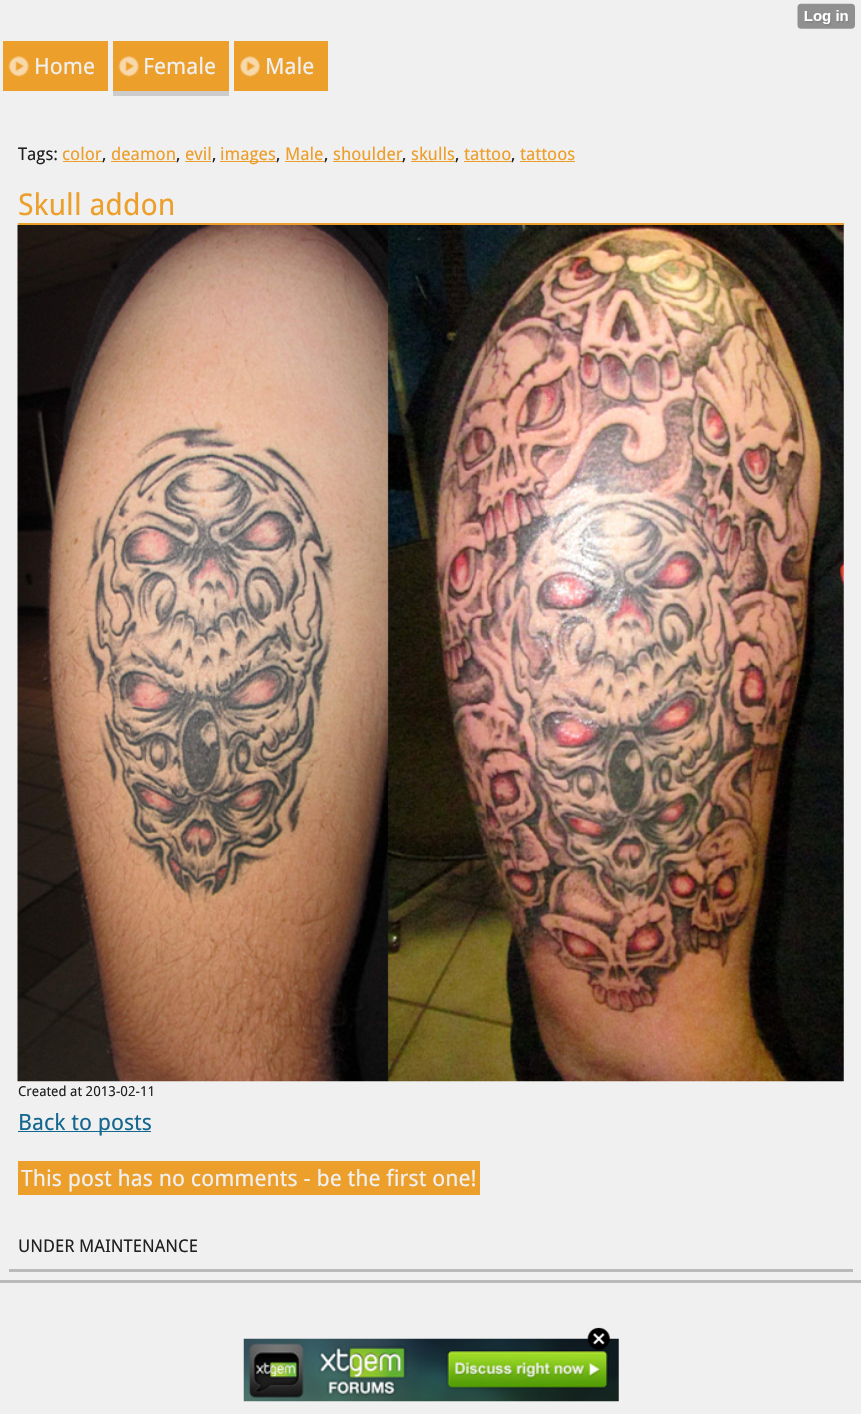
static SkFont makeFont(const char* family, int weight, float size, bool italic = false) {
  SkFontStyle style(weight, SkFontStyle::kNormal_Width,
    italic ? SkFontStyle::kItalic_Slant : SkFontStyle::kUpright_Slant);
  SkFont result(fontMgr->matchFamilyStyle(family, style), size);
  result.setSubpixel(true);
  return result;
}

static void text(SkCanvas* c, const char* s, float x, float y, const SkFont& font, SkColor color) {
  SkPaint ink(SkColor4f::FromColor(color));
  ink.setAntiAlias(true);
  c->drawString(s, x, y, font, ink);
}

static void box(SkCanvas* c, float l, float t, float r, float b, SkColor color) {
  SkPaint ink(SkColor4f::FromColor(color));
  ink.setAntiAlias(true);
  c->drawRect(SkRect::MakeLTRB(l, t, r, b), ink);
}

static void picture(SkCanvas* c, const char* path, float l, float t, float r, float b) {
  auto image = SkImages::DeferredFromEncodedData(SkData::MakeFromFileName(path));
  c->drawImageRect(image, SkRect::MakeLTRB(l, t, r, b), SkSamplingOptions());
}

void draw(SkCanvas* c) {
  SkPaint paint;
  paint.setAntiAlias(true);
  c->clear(0xfff0f0f0);
  picture(c, "img_01.png", 797, 3, 855, 29);
  box(c, 3, 41, 108, 91, 0xffed9f2b);
  picture(c, "img_02.png", 8, 56, 29, 77);
  SkFont face1 = makeFont("Droid Sans", 400, 22.5f);
  text(c, "Home", 34, 74, face1, 0xfff0f0f0);
  box(c, 113, 41, 229, 91, 0xffed9f2b);
  picture(c, "img_03.png", 118, 56, 139, 77);
  box(c, 113, 91, 229, 96, 0xffcccccc);
  text(c, "Female", 143, 74, face1, 0xfff0f0f0);
  box(c, 234, 41, 328, 91, 0xffed9f2b);
  picture(c, "img_04.png", 240, 56, 260, 77);
  text(c, "Male", 265, 74, face1, 0xfff0f0f0);
  box(c, 0, 1280, 861, 1283, 0xffbababa);
  box(c, 9, 1269, 853, 1272, 0xffbababa);
  SkFont face2 = makeFont("Droid Sans", 400, 17.5f);
  text(c, "Tags:", 18, 160, face2, 0xff212121);
  text(c, "color", 62, 160, face2, 0xffed9f2b);
  box(c, 63, 161, 103, 162, 0xffed9f2b);
  text(c, ",", 102, 160, face2, 0xff212121);
  text(c, "deamon", 111, 160, face2, 0xffed9f2b);
  box(c, 111, 161, 176, 162, 0xffed9f2b);
  text(c, ",", 176, 160, face2, 0xff212121);
  text(c, "evil", 185, 160, face2, 0xffed9f2b);
  box(c, 185, 161, 211, 162, 0xffed9f2b);
  text(c, ",", 212, 160, face2, 0xff212121);
  box(c, 220, 161, 276, 162, 0xffed9f2b);
  text(c, "images", 220, 160, face2, 0xffed9f2b);
  text(c, ",", 276, 160, face2, 0xff212121);
  text(c, "Male", 285, 160, face2, 0xffed9f2b);
  box(c, 285, 161, 324, 162, 0xffed9f2b);
  text(c, ",", 324, 160, face2, 0xff212121);
  text(c, "shoulder", 333, 160, face2, 0xffed9f2b);
  box(c, 333, 161, 403, 162, 0xffed9f2b);
  text(c, ",", 402, 160, face2, 0xff212121);
  text(c, "skulls", 411, 160, face2, 0xffed9f2b);
  box(c, 411, 161, 455, 162, 0xffed9f2b);
  text(c, ",", 455, 160, face2, 0xff212121);
  text(c, "tattoo", 464, 160, face2, 0xffed9f2b);
  box(c, 464, 161, 511, 162, 0xffed9f2b);
  text(c, ",", 511, 160, face2, 0xff212121);
  text(c, "tattoos", 520, 160, face2, 0xffed9f2b);
  box(c, 520, 161, 575, 162, 0xffed9f2b);
  SkFont face3 = makeFont("Droid Sans", 400, 30);
  text(c, "Skull addon", 18, 215, face3, 0xffed9f2b);
  box(c, 18, 223, 844, 226, 0xffed9f2b);
  picture(c, "img_05.png", 17, 225, 844, 1082);
  SkFont face4 = makeFont("Droid Sans", 400, 13.75f);
  text(c, "Created at 2013-02-11", 18, 1096, face4, 0xff212121);
  box(c, 18, 1131, 151, 1132, 0xff14688f);
  text(c, "Back to posts", 18, 1130, face1, 0xff14688f);
  box(c, 18, 1161, 480, 1195, 0xffed9f2b);
  text(c, "This post has no comments - be the first one!", 21, 1186, face1, 0xfff0f0f0);
  text(c, "UNDER MAINTENANCE", 18, 1252, face2, 0xff212121);
  picture(c, "img_07.png", 243, 1338, 619, 1402);
  picture(c, "img_06.png", 587, 1327, 610, 1350);
}
